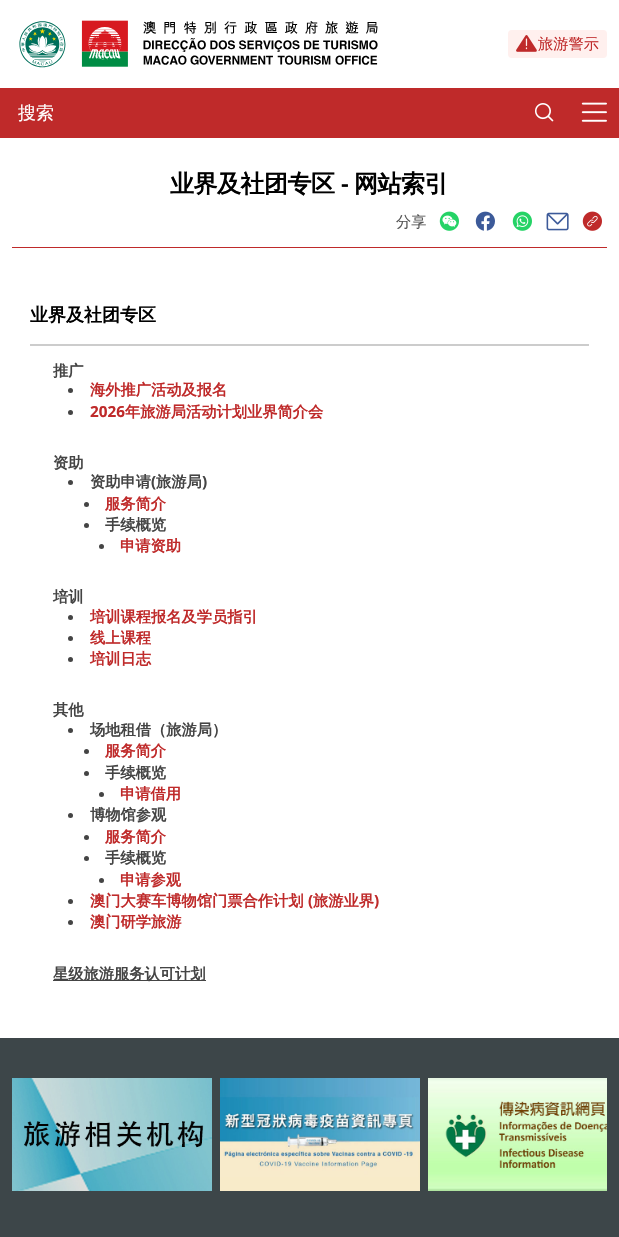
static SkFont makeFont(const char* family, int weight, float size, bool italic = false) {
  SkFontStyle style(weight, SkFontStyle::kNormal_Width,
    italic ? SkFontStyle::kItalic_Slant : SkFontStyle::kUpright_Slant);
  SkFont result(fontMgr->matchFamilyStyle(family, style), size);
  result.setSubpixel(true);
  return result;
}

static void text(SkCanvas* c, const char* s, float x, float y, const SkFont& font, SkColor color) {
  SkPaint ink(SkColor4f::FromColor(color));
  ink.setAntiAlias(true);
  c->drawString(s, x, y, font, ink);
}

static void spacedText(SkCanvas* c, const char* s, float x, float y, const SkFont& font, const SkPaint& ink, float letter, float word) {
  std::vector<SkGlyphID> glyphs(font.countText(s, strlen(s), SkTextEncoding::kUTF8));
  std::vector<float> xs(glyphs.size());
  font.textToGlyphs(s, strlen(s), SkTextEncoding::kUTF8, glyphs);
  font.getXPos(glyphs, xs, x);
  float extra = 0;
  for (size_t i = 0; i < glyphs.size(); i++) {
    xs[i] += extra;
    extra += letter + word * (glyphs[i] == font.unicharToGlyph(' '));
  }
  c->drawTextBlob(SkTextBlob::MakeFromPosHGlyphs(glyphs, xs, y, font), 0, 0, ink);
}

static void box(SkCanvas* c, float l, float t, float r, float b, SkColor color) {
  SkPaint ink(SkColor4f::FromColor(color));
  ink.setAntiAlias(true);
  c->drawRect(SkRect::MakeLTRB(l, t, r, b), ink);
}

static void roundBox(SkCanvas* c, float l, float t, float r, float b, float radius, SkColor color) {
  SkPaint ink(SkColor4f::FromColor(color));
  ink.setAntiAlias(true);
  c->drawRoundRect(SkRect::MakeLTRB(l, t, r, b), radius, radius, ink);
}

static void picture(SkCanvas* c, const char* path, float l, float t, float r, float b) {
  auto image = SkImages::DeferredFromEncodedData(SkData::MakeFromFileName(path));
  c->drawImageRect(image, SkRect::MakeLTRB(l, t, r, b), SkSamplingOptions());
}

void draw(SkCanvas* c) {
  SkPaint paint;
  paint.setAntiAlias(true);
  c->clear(0xffffffff);
  picture(c, "img_01.png", 19, 20, 378, 68);
  roundBox(c, 508, 30, 607, 58, 4, 0xfffff0ee);
  picture(c, "img_02.png", 516, 35, 537, 52);
  SkFont face1 = makeFont("WenQuanYi Zen Hei", 500, 15.25f);
  text(c, "旅游警示", 538, 49, face1, 0xffbf2a2a);
  box(c, 0, 88, 619, 138, 0xffbf2a2a);
  SkFont face2 = makeFont("WenQuanYi Zen Hei", 500, 18);
  text(c, "搜索", 18, 119, face2, 0xffffffff);
  picture(c, "img_03.png", 535, 103, 554, 122);
  picture(c, "img_04.png", 581, 102, 607, 122);
  box(c, 12, 247, 607, 248, 0xffbf2a2a);
  SkFont face3 = makeFont("WenQuanYi Zen Hei", 700, 24);
  paint.setColor(0xff000000);
  spacedText(c, "业界及社团专区", 170, 192, face3, paint, -0.5f, 0);
  SkFont face4 = makeFont("Noto Sans", 600, 24);
  spacedText(c, "-", 341, 192, face4, paint, -0.5f, 0);
  spacedText(c, "网站索引", 354, 192, face3, paint, -0.5f, 0);
  text(c, "分享", 396, 227, face1, 0xff555555);
  picture(c, "img_05.png", 439, 211, 459, 231);
  picture(c, "img_06.png", 475, 211, 495, 231);
  picture(c, "img_07.png", 512, 211, 532, 231);
  picture(c, "img_08.png", 546, 212, 569, 231);
  picture(c, "img_09.png", 582, 211, 602, 231);
  box(c, 30, 344, 589, 346, 0xffcccccc);
  SkFont face5 = makeFont("WenQuanYi Zen Hei", 700, 18);
  text(c, "业界及社团专区", 30, 321, face5, 0xff000000);
  SkFont face6 = makeFont("WenQuanYi Zen Hei", 700, 15.25f);
  text(c, "推广", 53, 376, face6, 0xff444444);
  paint.setColor(0xff444444);
  c->drawCircle(70.5f, 390.5f, 2.5f, paint);
  text(c, "海外推广活动及报名", 90, 395, face6, 0xffbf2a2a);
  c->drawCircle(70.5f, 412.5f, 2.5f, paint);
  SkFont face7 = makeFont("Noto Sans", 700, 15.25f);
  text(c, "2026", 90, 417, face7, 0xffbf2a2a);
  text(c, "年旅游局活动计划业界简介会", 125, 417, face6, 0xffbf2a2a);
  text(c, "资助", 53, 468, face6, 0xff444444);
  c->drawCircle(70.5f, 482.5f, 2.5f, paint);
  text(c, "资助申请", 90, 487, face6, 0xff444444);
  text(c, "(", 151, 487, face7, 0xff444444);
  text(c, "旅游局", 156, 487, face6, 0xff444444);
  text(c, ")", 202, 487, face7, 0xff444444);
  c->drawCircle(86.5f, 504.5f, 2.5f, paint);
  text(c, "服务简介", 105, 509, face6, 0xffbf2a2a);
  c->drawCircle(86.5f, 525.5f, 2.5f, paint);
  text(c, "手续概览", 105, 530, face6, 0xff444444);
  c->drawCircle(101.5f, 546.5f, 2.5f, paint);
  text(c, "申请资助", 120, 551, face6, 0xffbf2a2a);
  text(c, "培训", 53, 602, face6, 0xff444444);
  c->drawCircle(70.5f, 617.5f, 2.5f, paint);
  text(c, "培训课程报名及学员指引", 90, 622, face6, 0xffbf2a2a);
  c->drawCircle(70.5f, 638.5f, 2.5f, paint);
  text(c, "线上课程", 90, 643, face6, 0xffbf2a2a);
  c->drawCircle(70.5f, 659.5f, 2.5f, paint);
  text(c, "培训日志", 90, 664, face6, 0xffbf2a2a);
  text(c, "其他", 53, 715, face6, 0xff444444);
  c->drawCircle(70.5f, 730.5f, 2.5f, paint);
  text(c, "场地租借（旅游局）", 90, 735, face6, 0xff444444);
  c->drawCircle(86.5f, 751.5f, 2.5f, paint);
  text(c, "服务简介", 105, 756, face6, 0xffbf2a2a);
  c->drawCircle(86.5f, 773.5f, 2.5f, paint);
  text(c, "手续概览", 105, 778, face6, 0xff444444);
  c->drawCircle(101.5f, 794.5f, 2.5f, paint);
  text(c, "申请借用", 120, 799, face6, 0xffbf2a2a);
  c->drawCircle(70.5f, 815.5f, 2.5f, paint);
  text(c, "博物馆参观", 90, 820, face6, 0xff444444);
  c->drawCircle(86.5f, 837.5f, 2.5f, paint);
  text(c, "服务简介", 105, 842, face6, 0xffbf2a2a);
  c->drawCircle(86.5f, 858.5f, 2.5f, paint);
  text(c, "手续概览", 105, 863, face6, 0xff444444);
  c->drawCircle(101.5f, 880.5f, 2.5f, paint);
  text(c, "申请参观", 120, 885, face6, 0xffbf2a2a);
  c->drawCircle(70.5f, 901.5f, 2.5f, paint);
  text(c, "澳门大赛车博物馆门票合作计划", 90, 906, face6, 0xffbf2a2a);
  text(c, "(", 308, 906, face7, 0xffbf2a2a);
  text(c, "旅游业界", 313, 906, face6, 0xffbf2a2a);
  text(c, ")", 374, 906, face7, 0xffbf2a2a);
  c->drawCircle(70.5f, 922.5f, 2.5f, paint);
  text(c, "澳门研学旅游", 90, 927, face6, 0xffbf2a2a);
  box(c, 53, 980, 206, 981, 0xff444444);
  text(c, "星级旅游服务认可计划", 53, 979, face6, 0xff444444);
  box(c, 0, 1038, 619, 1237, 0xff3d4649);
  picture(c, "img_10.png", 12, 1078, 212, 1191);
  picture(c, "img_11.png", 220, 1078, 420, 1191);
  picture(c, "img_12.png", 428, 1078, 607, 1191);
}
